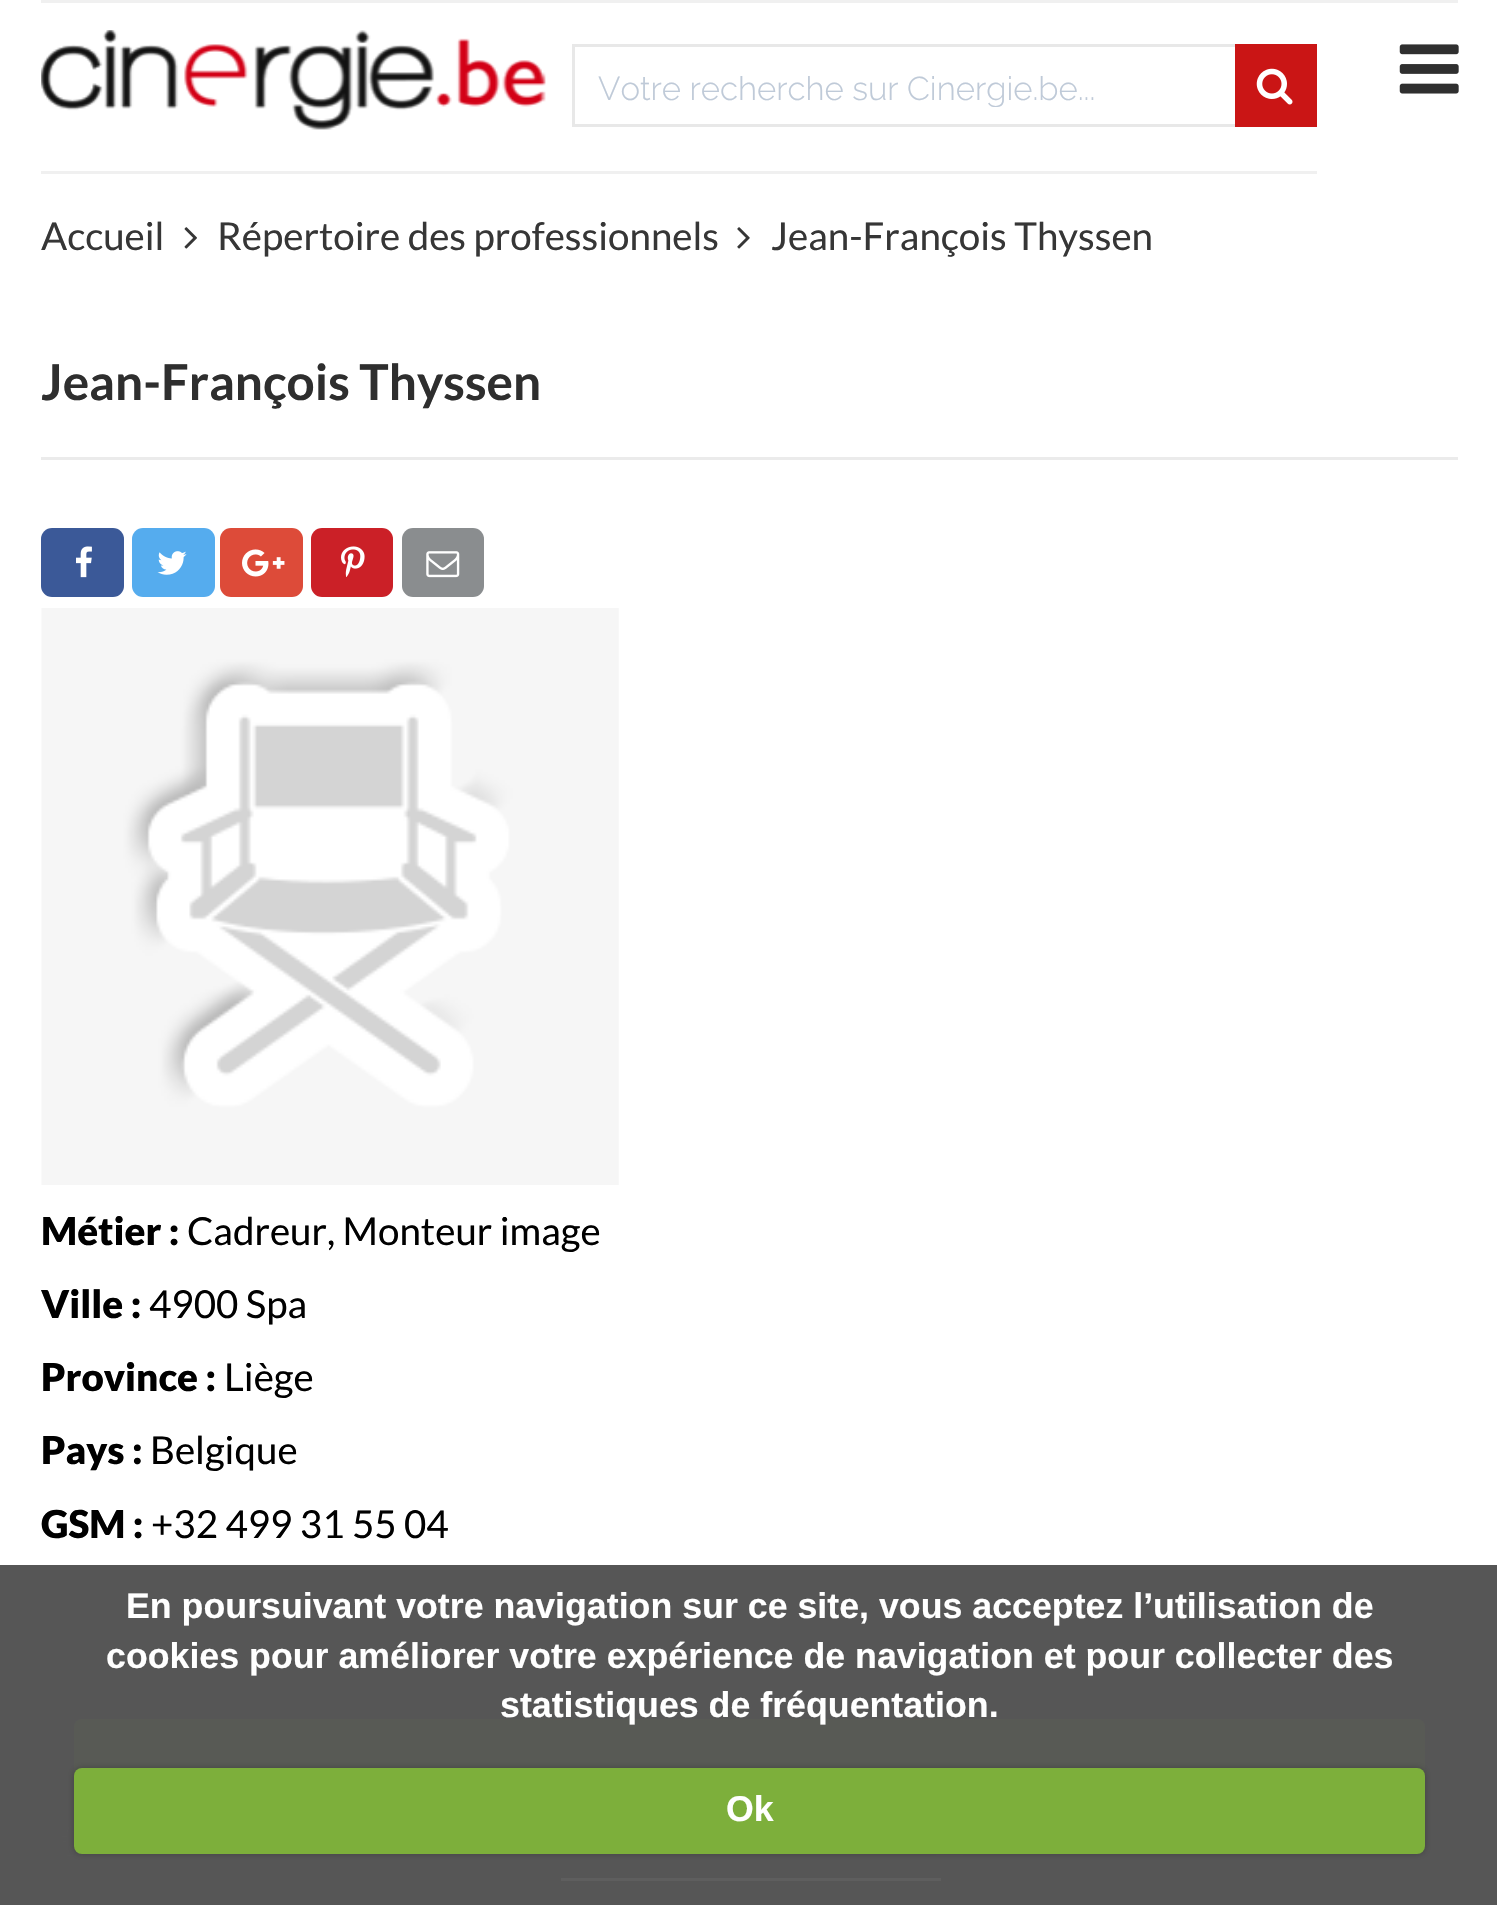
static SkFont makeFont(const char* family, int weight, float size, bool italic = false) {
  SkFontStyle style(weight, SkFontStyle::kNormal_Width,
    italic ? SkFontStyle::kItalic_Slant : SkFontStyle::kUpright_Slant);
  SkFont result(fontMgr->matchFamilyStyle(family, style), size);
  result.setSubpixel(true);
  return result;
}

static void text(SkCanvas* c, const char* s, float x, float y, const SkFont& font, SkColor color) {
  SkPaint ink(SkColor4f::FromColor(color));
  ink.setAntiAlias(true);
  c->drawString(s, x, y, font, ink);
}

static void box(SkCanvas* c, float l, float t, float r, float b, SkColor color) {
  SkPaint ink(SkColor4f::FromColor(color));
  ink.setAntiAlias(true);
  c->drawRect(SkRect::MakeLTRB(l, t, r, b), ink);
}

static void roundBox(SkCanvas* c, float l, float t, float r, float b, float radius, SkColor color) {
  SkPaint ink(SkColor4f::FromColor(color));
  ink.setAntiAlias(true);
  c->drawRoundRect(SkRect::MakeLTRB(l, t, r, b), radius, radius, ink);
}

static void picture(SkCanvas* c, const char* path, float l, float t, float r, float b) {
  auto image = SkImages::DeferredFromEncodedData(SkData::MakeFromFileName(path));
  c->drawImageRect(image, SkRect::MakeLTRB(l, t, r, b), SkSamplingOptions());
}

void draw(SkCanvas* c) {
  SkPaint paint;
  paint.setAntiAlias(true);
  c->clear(0xffffffff);
  box(c, 0, 1565, 1497, 1905, 0xff565656);
  box(c, 41, 0, 1458, 3, 0xfff0f0f0);
  picture(c, "img_01.png", 1399, 44, 1459, 94);
  box(c, 41, 171, 1317, 174, 0xfff0f0f0);
  picture(c, "img_02.png", 41, 30, 546, 130);
  box(c, 572, 44, 1235, 47, 0xffe8e8e8);
  box(c, 572, 124, 1235, 127, 0xffe8e8e8);
  box(c, 572, 44, 575, 127, 0xffe8e8e8);
  c->save();
  c->clipRect(SkRect::MakeLTRB(597, 69, 1213, 107));
  SkFont face1 = makeFont("Raleway", 300, 33);
  text(c, "Votre recherche sur Cinergie.be...", 598, 100, face1, 0xffbfcad8);
  c->restore();
  box(c, 1235, 44, 1317, 127, 0xffca1515);
  picture(c, "img_03.png", 1256, 68, 1293, 105);
  SkFont face2 = makeFont("Lato", 400, 38.5f);
  text(c, "Accueil", 41, 250, face2, 0xff363636);
  picture(c, "img_04.png", 184, 227, 197, 249);
  text(c, "Répertoire des professionnels", 217, 250, face2, 0xff363636);
  picture(c, "img_05.png", 737, 227, 750, 249);
  text(c, "Jean-François Thyssen", 771, 250, face2, 0xff363636);
  box(c, 41, 457, 1458, 460, 0xffebebeb);
  SkFont face3 = makeFont("Lato", 700, 49.5f);
  text(c, "Jean-François Thyssen", 41, 400, face3, 0xff2e2e2e);
  roundBox(c, 41, 528, 124, 597, 11, 0xff3b5998);
  picture(c, "img_06.png", 76, 546, 92, 578);
  roundBox(c, 132, 528, 215, 597, 11, 0xff55acee);
  picture(c, "img_07.png", 157, 551, 187, 575);
  roundBox(c, 220, 528, 303, 597, 11, 0xffdd4b39);
  picture(c, "img_08.png", 242, 549, 285, 577);
  roundBox(c, 311, 528, 393, 597, 11, 0xffcb2027);
  picture(c, "img_09.png", 341, 546, 365, 577);
  roundBox(c, 402, 528, 484, 597, 11, 0xff8a8d8f);
  picture(c, "img_10.png", 426, 551, 460, 578);
  picture(c, "img_11.png", 41, 608, 619, 1185);
  SkFont face4 = makeFont("Lato", 900, 38.5f);
  text(c, "Métier :", 41, 1245, face4, 0xff000000);
  text(c, "Cadreur, Monteur image", 187, 1245, face2, 0xff000000);
  text(c, "Ville :", 41, 1318, face4, 0xff000000);
  text(c, "4900 Spa", 149, 1318, face2, 0xff000000);
  text(c, "Province :", 41, 1391, face4, 0xff000000);
  text(c, "Liège", 224, 1391, face2, 0xff000000);
  text(c, "Pays :", 41, 1464, face4, 0xff000000);
  text(c, "Belgique", 150, 1464, face2, 0xff000000);
  text(c, "GSM :", 41, 1538, face4, 0xff000000);
  text(c, "+32 499 31 55 04", 151, 1538, face2, 0xff000000);
  picture(c, "img_12.png", 62, 1825, 74, 1856);
  picture(c, "img_13.png", 519, 1854, 531, 1856);
  picture(c, "img_14.png", 730, 1854, 733, 1856);
  picture(c, "img_15.png", 932, 1854, 965, 1856);
  SkFont face5 = makeFont("Liberation Sans", 700, 35.75f);
  text(c, "En poursuivant votre navigation sur ce site, vous acceptez l’utilisation de", 126, 1618, face5, 0xffffffff);
  text(c, "cookies pour améliorer votre expérience de navigation et pour collecter des", 106, 1668, face5, 0xffffffff);
  roundBox(c, 74, 1719, 1425, 1804, 8, 0xff585a55);
  text(c, "statistiques de fréquentation.", 500, 1717, face5, 0xffffffff);
  paint.setColor(0x40000000);
  paint.setMaskFilter(SkMaskFilter::MakeBlur(kNormal_SkBlurStyle, 3));
  c->drawRoundRect(SkRect::MakeLTRB(74, 1768, 1425, 1854), 8, 8, paint);
  paint.setMaskFilter(nullptr);
  roundBox(c, 74, 1768, 1425, 1854, 8, 0xff7daf3b);
  text(c, "Ok", 726, 1821, face5, 0xffffffff);
  box(c, 561, 1878, 941, 1881, 0xff5e5e5e);
}
